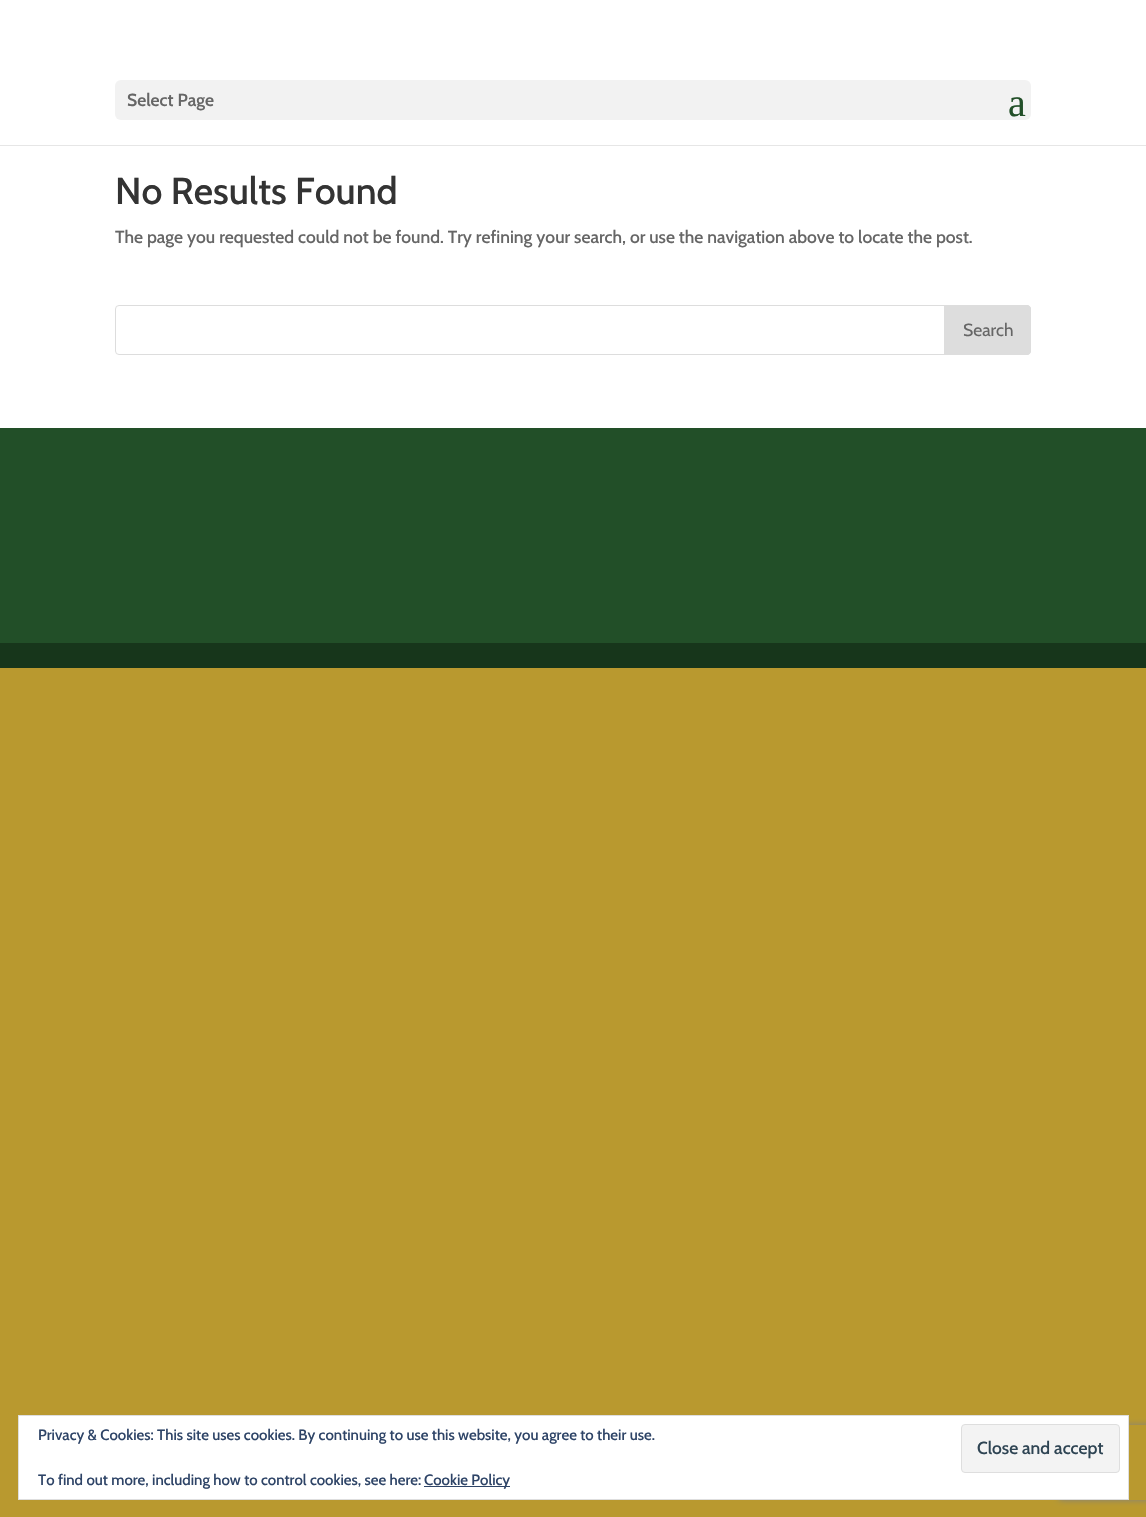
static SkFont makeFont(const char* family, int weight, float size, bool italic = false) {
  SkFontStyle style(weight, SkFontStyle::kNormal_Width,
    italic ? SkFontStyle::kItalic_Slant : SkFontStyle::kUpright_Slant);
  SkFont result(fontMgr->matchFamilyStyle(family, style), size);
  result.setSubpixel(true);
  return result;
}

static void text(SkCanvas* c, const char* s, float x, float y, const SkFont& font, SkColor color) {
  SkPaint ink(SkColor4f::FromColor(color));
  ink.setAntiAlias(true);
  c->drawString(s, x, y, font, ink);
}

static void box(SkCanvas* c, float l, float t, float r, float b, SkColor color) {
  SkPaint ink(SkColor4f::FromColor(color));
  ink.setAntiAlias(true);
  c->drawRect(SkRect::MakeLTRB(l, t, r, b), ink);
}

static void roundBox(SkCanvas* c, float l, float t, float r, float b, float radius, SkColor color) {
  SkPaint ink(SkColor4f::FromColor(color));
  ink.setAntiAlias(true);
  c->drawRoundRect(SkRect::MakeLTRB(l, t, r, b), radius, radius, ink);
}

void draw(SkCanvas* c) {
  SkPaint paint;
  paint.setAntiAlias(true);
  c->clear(0xffb9992f);
  box(c, 0, 145, 1146, 146, 0xffe6e6e6);
  box(c, 0, 0, 1146, 145, 0xffffffff);
  roundBox(c, 115, 80, 1031, 120, 6, 0xfff2f2f2);
  SkFont face1 = makeFont("Cabin", 600, 17.5f);
  text(c, "Select Page", 127, 106, face1, 0xff666666);
  SkFont face2 = makeFont("Liberation Serif", 400, 40);
  text(c, "a", 1008, 116, face2, 0xff224f28);
  box(c, 0, 146, 1146, 428, 0xffffffff);
  SkFont face3 = makeFont("Cabin", 500, 37.5f);
  text(c, "No Results Found", 115, 204, face3, 0xff333333);
  SkFont face4 = makeFont("Cabin", 500, 17.5f);
  text(c, "The page you requested could not be found. Try refining your search, or use the navigation above to locate the post.", 115, 243, face4, 0xff666666);
  paint.setStyle(SkPaint::kStroke_Style);
  paint.setStrokeWidth(1);
  paint.setColor(0xffdddddd);
  c->drawRoundRect(SkRect::MakeLTRB(115.5f, 305.5f, 1030.5f, 354.5f), 3.5f, 3.5f, paint);
  paint.setStyle(SkPaint::kFill_Style);
  c->drawPath(SkPathBuilder().moveTo(944.5f, 305.5f).lineTo(1027, 305.5f).cubicTo(1029, 305.5f, 1030.5f, 307, 1030.5f, 309).lineTo(1030.5f, 351).cubicTo(1030.5f, 353, 1029, 354.5f, 1027, 354.5f).lineTo(944.5f, 354.5f).close().detach(), paint);
  paint.setStyle(SkPaint::kStroke_Style);
  c->drawPath(SkPathBuilder().moveTo(944.5f, 305.5f).lineTo(1027, 305.5f).cubicTo(1029, 305.5f, 1030.5f, 307, 1030.5f, 309).lineTo(1030.5f, 351).cubicTo(1030.5f, 353, 1029, 354.5f, 1027, 354.5f).lineTo(944.5f, 354.5f).close().detach(), paint);
  SkFont face5 = makeFont("Cabin", 400, 17.5f);
  text(c, "Search", 963, 336, face5, 0xff666666);
  box(c, 0, 428, 1146, 643, 0xff224f28);
  box(c, 0, 643, 1146, 668, 0xff17361b);
  c->save();
  c->clipPath(SkPathBuilder(SkPathFillType::kEvenOdd).moveTo(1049, 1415).lineTo(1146, 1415).lineTo(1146, 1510).lineTo(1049, 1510).close().moveTo(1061.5f, 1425).lineTo(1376.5f, 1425).cubicTo(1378, 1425, 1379, 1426, 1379, 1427.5f).lineTo(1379, 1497.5f).cubicTo(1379, 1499, 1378, 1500, 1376.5f, 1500).lineTo(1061.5f, 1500).cubicTo(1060, 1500, 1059, 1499, 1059, 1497.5f).lineTo(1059, 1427.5f).cubicTo(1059, 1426, 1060, 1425, 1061.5f, 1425).close().detach(), true);
  paint.setStyle(SkPaint::kFill_Style);
  paint.setColor(0xff808080);
  paint.setMaskFilter(SkMaskFilter::MakeBlur(kNormal_SkBlurStyle, 3));
  c->drawRoundRect(SkRect::MakeLTRB(1059, 1425, 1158, 1500), 2.5f, 2.5f, paint);
  paint.setMaskFilter(nullptr);
  c->restore();
  paint.setColor(0xffffffff);
  c->drawRect(SkRect::MakeLTRB(18.5f, 1415.5f, 1128.5f, 1499.5f), paint);
  paint.setStyle(SkPaint::kStroke_Style);
  paint.setColor(0xffdedede);
  c->drawRect(SkRect::MakeLTRB(18.5f, 1415.5f, 1128.5f, 1499.5f), paint);
  SkFont face6 = makeFont("Cabin", 500, 15);
  text(c, "Privacy & Cookies: This site uses cookies. By continuing to use this website, you agree to their use.", 38, 1440, face6, 0xff2e4467);
  paint.setStyle(SkPaint::kFill_Style);
  paint.setColor(0xfff3f3f3);
  c->drawRoundRect(SkRect::MakeLTRB(961.5f, 1424.5f, 1119.5f, 1472.5f), 3.5f, 3.5f, paint);
  paint.setStyle(SkPaint::kStroke_Style);
  paint.setColor(0xffdedede);
  c->drawRoundRect(SkRect::MakeLTRB(961.5f, 1424.5f, 1119.5f, 1472.5f), 3.5f, 3.5f, paint);
  text(c, "Close and accept", 977, 1454, face4, 0xff2e4453);
  text(c, "To find out more, including how to control cookies, see here:", 38, 1485, face6, 0xff2e4467);
  box(c, 424, 1486, 510, 1487, 0xff2e4467);
  text(c, "Cookie Policy", 424, 1485, face6, 0xff2e4467);
}
